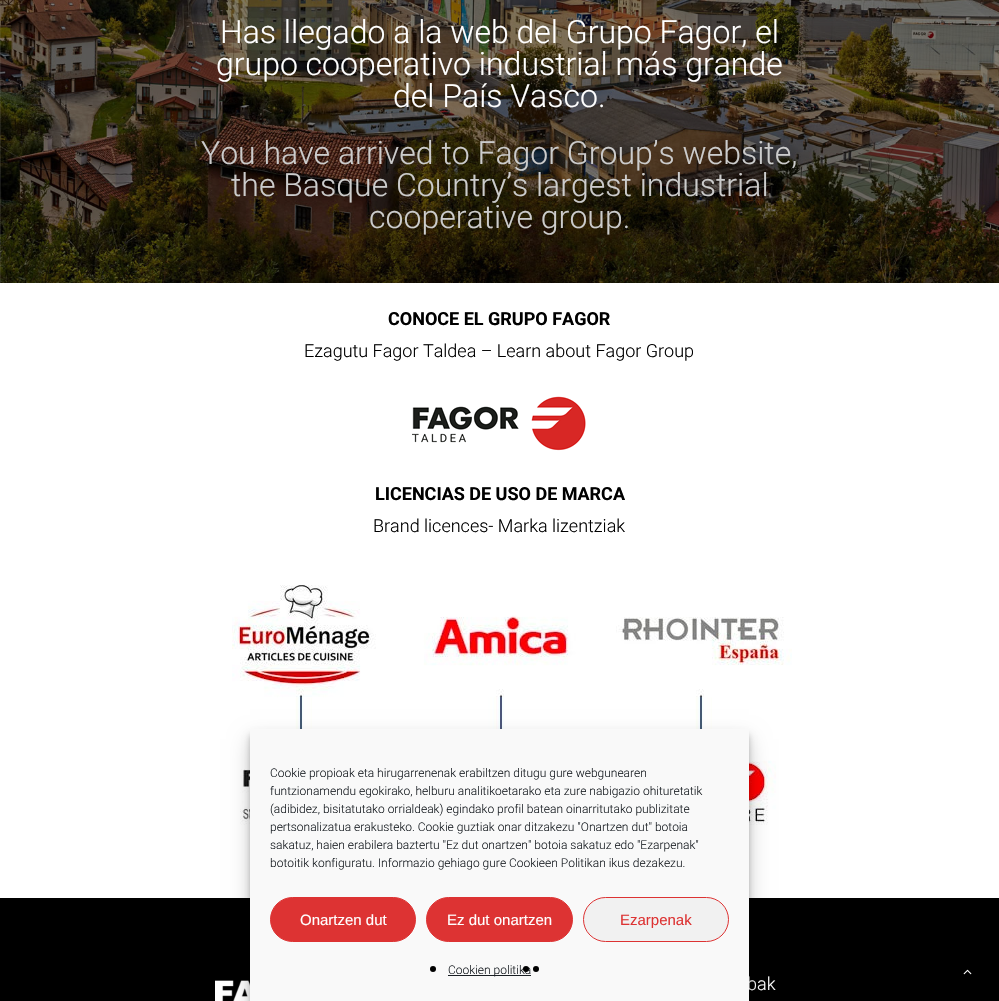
static SkFont makeFont(const char* family, int weight, float size, bool italic = false) {
  SkFontStyle style(weight, SkFontStyle::kNormal_Width,
    italic ? SkFontStyle::kItalic_Slant : SkFontStyle::kUpright_Slant);
  SkFont result(fontMgr->matchFamilyStyle(family, style), size);
  result.setSubpixel(true);
  return result;
}

static void text(SkCanvas* c, const char* s, float x, float y, const SkFont& font, SkColor color) {
  SkPaint ink(SkColor4f::FromColor(color));
  ink.setAntiAlias(true);
  c->drawString(s, x, y, font, ink);
}

static void box(SkCanvas* c, float l, float t, float r, float b, SkColor color) {
  SkPaint ink(SkColor4f::FromColor(color));
  ink.setAntiAlias(true);
  c->drawRect(SkRect::MakeLTRB(l, t, r, b), ink);
}

static void picture(SkCanvas* c, const char* path, float l, float t, float r, float b) {
  auto image = SkImages::DeferredFromEncodedData(SkData::MakeFromFileName(path));
  c->drawImageRect(image, SkRect::MakeLTRB(l, t, r, b), SkSamplingOptions());
}

void draw(SkCanvas* c) {
  SkPaint paint;
  paint.setAntiAlias(true);
  c->clear(0xffffffff);
  picture(c, "img_01.png", 0, 0, 999, 283);
  SkFont face1 = makeFont("Roboto", 300, 32);
  text(c, "Has llegado a la web del Grupo Fagor, el", 220, 43, face1, 0xffffffff);
  text(c, "grupo cooperativo industrial más grande", 216, 75, face1, 0xffffffff);
  text(c, "del País Vasco.", 393, 107, face1, 0xffffffff);
  text(c, "You have arrived to Fagor Group’s website,", 201, 164, face1, 0xffcccccc);
  text(c, "the Basque Country’s largest industrial", 231, 196, face1, 0xffcccccc);
  text(c, "cooperative group.", 369, 228, face1, 0xffcccccc);
  SkFont face2 = makeFont("Roboto", 700, 18);
  text(c, "CONOCE EL GRUPO FAGOR", 388, 325, face2, 0xff000000);
  SkFont face3 = makeFont("Roboto", 300, 18);
  text(c, "Ezagutu Fagor Taldea – Learn about Fagor Group", 304, 357, face3, 0xff000000);
  picture(c, "img_02.png", 412, 396, 586, 451);
  text(c, "LICENCIAS DE USO DE MARCA", 375, 500, face2, 0xff000000);
  text(c, "Brand licences- Marka lizentziak", 373, 532, face3, 0xff000000);
  picture(c, "img_03.png", 232, 585, 792, 825);
  box(c, 0, 898, 999, 1001, 0xff000000);
  picture(c, "img_04.png", 215, 980, 250, 1001);
  text(c, "bak", 747, 990, face3, 0xffffffff);
  picture(c, "img_05.png", 963, 969, 972, 975);
  paint.setColor(0x3b000000);
  paint.setMaskFilter(SkMaskFilter::MakeBlur(kNormal_SkBlurStyle, 3));
  c->drawRect(SkRect::MakeLTRB(250, 735, 749, 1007), paint);
  paint.setMaskFilter(nullptr);
  paint.setColor(0x30000000);
  paint.setMaskFilter(SkMaskFilter::MakeBlur(kNormal_SkBlurStyle, 10));
  c->drawRect(SkRect::MakeLTRB(250, 739, 749, 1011), paint);
  paint.setMaskFilter(nullptr);
  box(c, 250, 729, 749, 1001, 0xfff9f9f9);
  SkFont face4 = makeFont("Roboto", 300, 12);
  text(c, "Cookie propioak eta hirugarrenenak erabiltzen ditugu gure webgunearen", 270, 777, face4, 0xff191e23);
  text(c, "funtzionamendu egokirako, helburu analitikoetarako eta zure nabigazio ohituretatik", 270, 795, face4, 0xff191e23);
  text(c, "(adibidez, bisitatutako orrialdeak) egindako profil batean oinarritutako publizitate", 270, 813, face4, 0xff191e23);
  text(c, "pertsonalizatua erakusteko. Cookie guztiak onar ditzakezu \"Onartzen dut\" botoia", 270, 831, face4, 0xff191e23);
  text(c, "sakatuz, haien erabilera baztertu \"Ez dut onartzen\" botoia sakatuz edo \"Ezarpenak\"", 270, 849, face4, 0xff191e23);
  text(c, "botoitik konfiguratu. Informazio gehiago gure Cookieen Politikan ikus dezakezu.", 270, 867, face4, 0xff191e23);
  paint.setColor(0xffdd3333);
  c->drawRoundRect(SkRect::MakeLTRB(270.5f, 897.5f, 415.5f, 941.5f), 22, 22, paint);
  paint.setStyle(SkPaint::kStroke_Style);
  paint.setStrokeWidth(1);
  c->drawRoundRect(SkRect::MakeLTRB(270.5f, 897.5f, 415.5f, 941.5f), 22, 22, paint);
  SkFont face5 = makeFont("Liberation Sans", 400, 15);
  text(c, "Onartzen dut", 300, 925, face5, 0xffffffff);
  paint.setStyle(SkPaint::kFill_Style);
  c->drawRoundRect(SkRect::MakeLTRB(426.5f, 897.5f, 572.5f, 941.5f), 22, 22, paint);
  paint.setStyle(SkPaint::kStroke_Style);
  c->drawRoundRect(SkRect::MakeLTRB(426.5f, 897.5f, 572.5f, 941.5f), 22, 22, paint);
  text(c, "Ez dut onartzen", 447, 925, face5, 0xffffffff);
  paint.setStyle(SkPaint::kFill_Style);
  paint.setColor(0xfff1f1f1);
  c->drawRoundRect(SkRect::MakeLTRB(583.5f, 897.5f, 728.5f, 941.5f), 22, 22, paint);
  paint.setStyle(SkPaint::kStroke_Style);
  paint.setColor(0xffdd3333);
  c->drawRoundRect(SkRect::MakeLTRB(583.5f, 897.5f, 728.5f, 941.5f), 22, 22, paint);
  text(c, "Ezarpenak", 620, 925, face5, 0xffdd3333);
  paint.setStyle(SkPaint::kFill_Style);
  paint.setColor(0xff000000);
  c->drawCircle(433, 969, 3, paint);
  box(c, 448, 975, 531, 976, 0xff191e23);
  text(c, "Cookien politika", 448, 974, face4, 0xff191e23);
  c->drawCircle(526, 969, 3, paint);
  c->drawCircle(536, 969, 3, paint);
}
